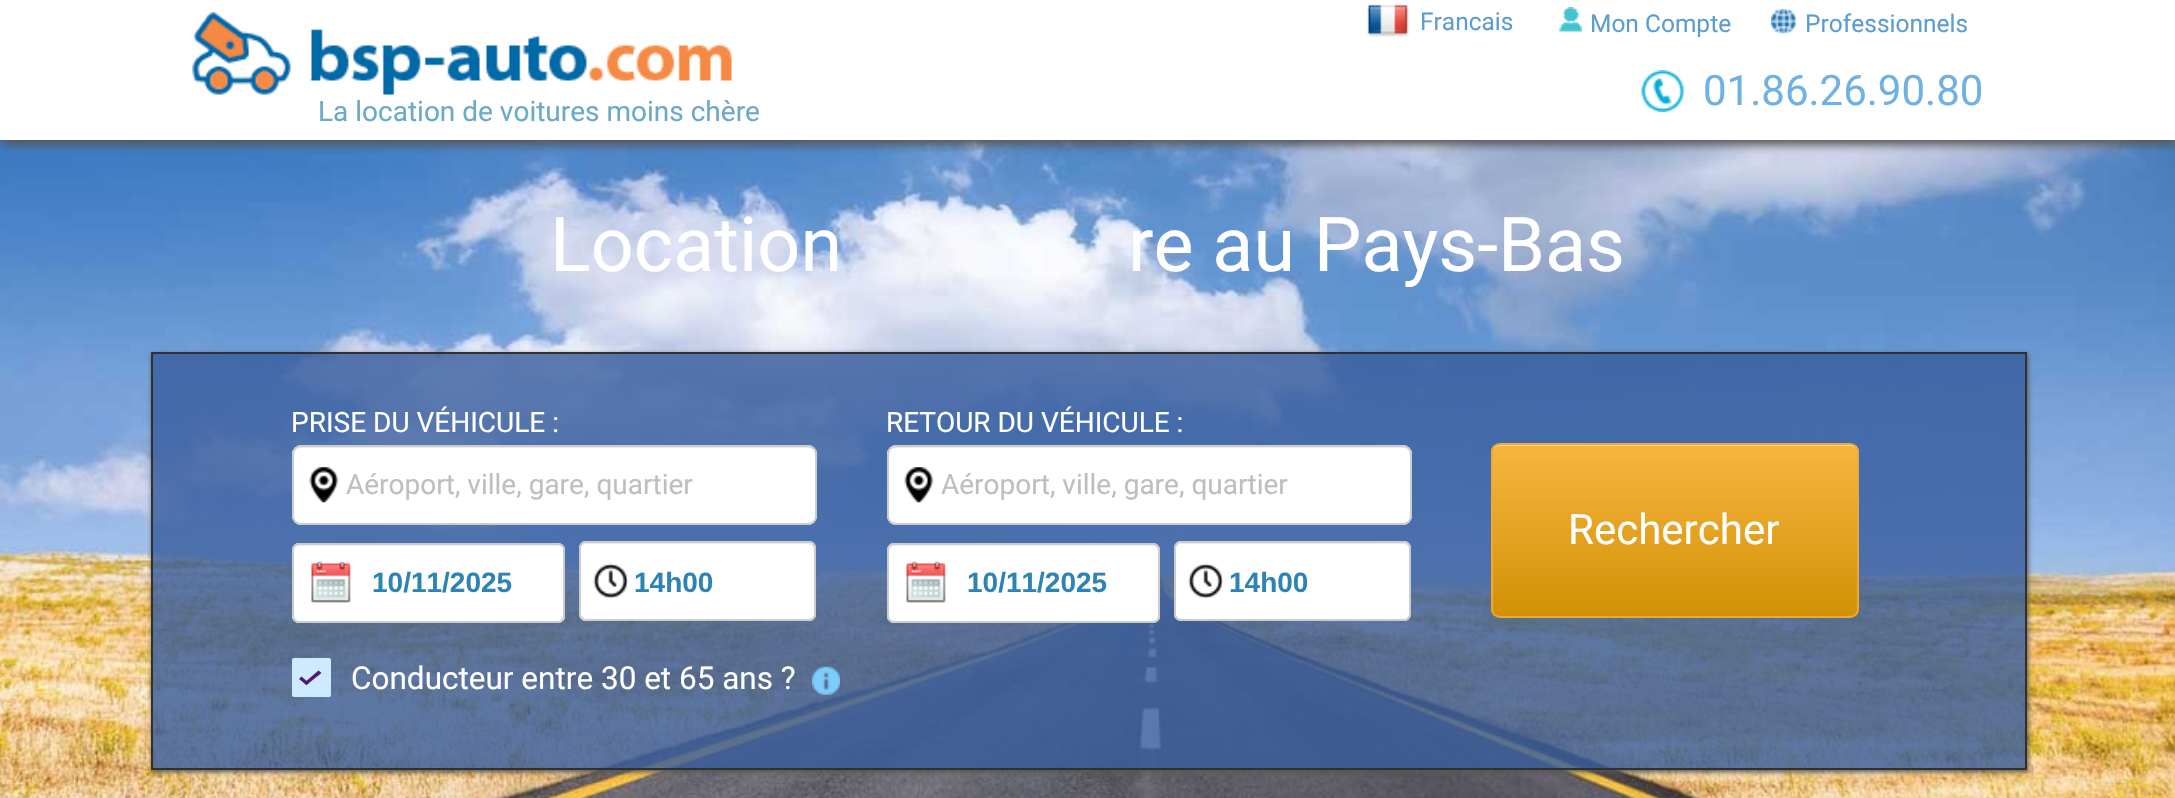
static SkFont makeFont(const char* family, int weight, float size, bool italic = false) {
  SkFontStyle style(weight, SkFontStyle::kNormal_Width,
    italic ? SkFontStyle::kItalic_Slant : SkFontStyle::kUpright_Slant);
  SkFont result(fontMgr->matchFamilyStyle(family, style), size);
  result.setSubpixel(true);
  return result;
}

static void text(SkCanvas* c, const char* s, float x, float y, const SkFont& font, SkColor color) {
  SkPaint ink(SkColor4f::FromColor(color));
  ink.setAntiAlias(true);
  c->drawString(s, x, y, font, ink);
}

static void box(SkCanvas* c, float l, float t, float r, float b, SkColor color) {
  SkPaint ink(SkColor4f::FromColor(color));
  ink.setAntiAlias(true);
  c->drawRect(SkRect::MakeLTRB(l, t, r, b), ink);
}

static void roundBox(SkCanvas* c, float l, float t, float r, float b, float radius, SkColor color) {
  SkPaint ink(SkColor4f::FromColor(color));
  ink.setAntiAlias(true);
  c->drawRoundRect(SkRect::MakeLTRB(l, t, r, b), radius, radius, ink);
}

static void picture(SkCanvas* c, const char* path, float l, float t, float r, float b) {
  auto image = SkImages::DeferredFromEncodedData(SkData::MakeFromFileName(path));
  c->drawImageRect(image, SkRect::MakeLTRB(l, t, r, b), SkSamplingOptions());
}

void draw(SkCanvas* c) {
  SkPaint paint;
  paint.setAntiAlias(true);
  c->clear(0xffffffff);
  picture(c, "img_01.png", 0, 140, 2175, 798);
  paint.setColor(0xff575757);
  paint.setMaskFilter(SkMaskFilter::MakeBlur(kNormal_SkBlurStyle, 4.5f));
  c->drawRect(SkRect::MakeLTRB(2, 5, 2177, 145), paint);
  paint.setMaskFilter(nullptr);
  box(c, 0, 0, 2175, 140, 0xffffffff);
  picture(c, "img_02.png", 1367, 4, 1409, 37);
  SkFont face1 = makeFont("Roboto", 400, 24.5f);
  text(c, "Francais", 1420, 30, face1, 0xff5c9dd1);
  picture(c, "img_03.png", 1559, 7, 1582, 32);
  text(c, "Mon Compte", 1590, 32, face1, 0xff5c9dd1);
  picture(c, "img_04.png", 1771, 9, 1796, 34);
  text(c, "Professionnels", 1805, 32, face1, 0xff5c9dd1);
  picture(c, "img_05.png", 1641, 70, 1684, 112);
  SkFont face2 = makeFont("Roboto", 400, 42);
  text(c, "01.86.26.90.80", 1703, 105, face2, 0xff70b1e4);
  picture(c, "img_06.png", 192, 12, 732, 95);
  SkFont face3 = makeFont("Roboto", 400, 28);
  text(c, "La location de voitures moins chère", 318, 121, face3, 0xff6aa9c7);
  SkFont face4 = makeFont("Roboto", 400, 75.5f);
  text(c, "Location", 550, 271, face4, 0xffffffff);
  text(c, "re au Pays-Bas", 1128, 271, face4, 0xffffffff);
  c->save();
  c->clipPath(SkPathBuilder(SkPathFillType::kEvenOdd).moveTo(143, 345).lineTo(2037, 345).lineTo(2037, 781).lineTo(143, 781).close().moveTo(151, 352).lineTo(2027, 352).lineTo(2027, 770).lineTo(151, 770).close().detach(), true);
  paint.setColor(0xff555555);
  paint.setMaskFilter(SkMaskFilter::MakeBlur(kNormal_SkBlurStyle, 2.5f));
  c->drawRect(SkRect::MakeLTRB(152, 354, 2028, 772), paint);
  paint.setMaskFilter(nullptr);
  c->restore();
  paint.setColor(0xcc365b9c);
  c->drawRect(SkRect::MakeLTRB(152, 353, 2026, 769), paint);
  paint.setStyle(SkPaint::kStroke_Style);
  paint.setStrokeWidth(2);
  paint.setColor(0xff303030);
  c->drawRect(SkRect::MakeLTRB(152, 353, 2026, 769), paint);
  text(c, "PRISE DU VÉHICULE :", 291, 432, face3, 0xffffffff);
  roundBox(c, 292, 445, 817, 525, 9, 0xffffffff);
  picture(c, "img_07.png", 309, 467, 339, 503);
  paint.setStyle(SkPaint::kFill_Style);
  paint.setColor(0xffececec);
  c->drawPath(SkPathBuilder().moveTo(301, 448).lineTo(808, 448).cubicTo(812, 448, 816, 451, 816, 455).cubicTo(816, 451, 814, 446, 809, 446).lineTo(301, 446).cubicTo(296, 446, 294, 451, 294, 455).cubicTo(294, 451, 297, 448, 301, 448).close().detach(), paint);
  paint.setStyle(SkPaint::kStroke_Style);
  paint.setColor(0xffcccccc);
  c->drawRoundRect(SkRect::MakeLTRB(293, 446, 816, 524), 8, 8, paint);
  text(c, "Aéroport, ville, gare, quartier", 346, 494, face3, 0xffbebebe);
  roundBox(c, 292, 543, 565, 623, 7, 0xffffffff);
  picture(c, "img_08.png", 311, 561, 351, 603);
  paint.setStyle(SkPaint::kFill_Style);
  paint.setColor(0xffececec);
  c->drawPath(SkPathBuilder().moveTo(299, 546).lineTo(558, 546).cubicTo(561, 546, 564, 548, 564, 551).lineTo(564, 549).cubicTo(564, 546, 562, 544, 559, 544).lineTo(299, 544).cubicTo(296, 544, 294, 546, 294, 549).lineTo(294, 551).cubicTo(294, 548, 296, 546, 299, 546).close().detach(), paint);
  paint.setStyle(SkPaint::kStroke_Style);
  paint.setColor(0xffcccccc);
  c->drawRoundRect(SkRect::MakeLTRB(293, 544, 564, 622), 6, 6, paint);
  SkFont face5 = makeFont("Liberation Sans", 700, 28);
  text(c, "10/11/2025", 372, 592, face5, 0xff2d83b3);
  roundBox(c, 579, 541, 816, 621, 7, 0xffffffff);
  picture(c, "img_09.png", 593, 563, 629, 599);
  paint.setStyle(SkPaint::kFill_Style);
  paint.setColor(0xffececec);
  c->drawPath(SkPathBuilder().moveTo(586, 544).lineTo(808, 544).cubicTo(811, 544, 814, 547, 814, 550).cubicTo(814, 547, 814, 544, 810, 543).lineTo(586, 543).cubicTo(582, 543, 581, 547, 581, 550).cubicTo(581, 547, 583, 544, 586, 544).close().detach(), paint);
  paint.setStyle(SkPaint::kStroke_Style);
  paint.setColor(0xffcccccc);
  c->drawRoundRect(SkRect::MakeLTRB(580, 542, 815, 620), 6, 6, paint);
  text(c, "14h00", 634, 592, face5, 0xff2d83b3);
  text(c, "RETOUR DU VÉHICULE :", 886, 432, face3, 0xffffffff);
  roundBox(c, 887, 445, 1412, 525, 9, 0xffffffff);
  picture(c, "img_07.png", 904, 467, 934, 503);
  paint.setStyle(SkPaint::kFill_Style);
  paint.setColor(0xffececec);
  c->drawPath(SkPathBuilder().moveTo(896, 448).lineTo(1404, 448).cubicTo(1407, 448, 1410, 451, 1410, 455).lineTo(1410, 520).cubicTo(1411, 519, 1411, 517, 1411, 516).lineTo(1411, 453).cubicTo(1411, 449, 1408, 446, 1404, 446).lineTo(896, 446).cubicTo(892, 446, 889, 449, 889, 453).lineTo(889, 455).cubicTo(889, 451, 892, 448, 896, 448).close().detach(), paint);
  paint.setStyle(SkPaint::kStroke_Style);
  paint.setColor(0xffcccccc);
  c->drawRoundRect(SkRect::MakeLTRB(888, 446, 1411, 524), 8, 8, paint);
  text(c, "Aéroport, ville, gare, quartier", 941, 494, face3, 0xffbebebe);
  roundBox(c, 887, 543, 1160, 623, 7, 0xffffffff);
  picture(c, "img_10.png", 906, 561, 946, 603);
  paint.setStyle(SkPaint::kFill_Style);
  paint.setColor(0xffececec);
  c->drawPath(SkPathBuilder().moveTo(894, 546).lineTo(1153, 546).cubicTo(1156, 546, 1158, 548, 1158, 551).lineTo(1158, 619).cubicTo(1159, 618, 1159, 617, 1159, 616).lineTo(1159, 549).cubicTo(1159, 546, 1157, 544, 1154, 544).lineTo(894, 544).cubicTo(891, 544, 889, 546, 889, 549).lineTo(889, 551).cubicTo(889, 548, 891, 546, 894, 546).close().detach(), paint);
  paint.setStyle(SkPaint::kStroke_Style);
  paint.setColor(0xffcccccc);
  c->drawRoundRect(SkRect::MakeLTRB(888, 544, 1159, 622), 6, 6, paint);
  text(c, "10/11/2025", 967, 592, face5, 0xff2d83b3);
  roundBox(c, 1174, 541, 1411, 621, 7, 0xffffffff);
  picture(c, "img_09.png", 1188, 563, 1224, 599);
  paint.setStyle(SkPaint::kFill_Style);
  paint.setColor(0xffececec);
  c->drawPath(SkPathBuilder().moveTo(1181, 544).lineTo(1404, 544).cubicTo(1406, 544, 1409, 547, 1409, 550).cubicTo(1409, 547, 1409, 544, 1405, 543).lineTo(1181, 543).cubicTo(1177, 543, 1176, 547, 1176, 550).cubicTo(1176, 547, 1178, 544, 1181, 544).close().detach(), paint);
  paint.setStyle(SkPaint::kStroke_Style);
  paint.setColor(0xffcccccc);
  c->drawRoundRect(SkRect::MakeLTRB(1175, 542, 1410, 620), 6, 6, paint);
  text(c, "14h00", 1229, 592, face5, 0xff2d83b3);
  roundBox(c, 292, 658, 331, 697, 2, 0xffceeafe);
  paint.setStyle(SkPaint::kFill_Style);
  paint.setColor(0xff53176d);
  c->drawPath(SkPathBuilder().moveTo(304, 683).lineTo(318.5f, 670.5f).lineTo(321.5f, 673).lineTo(306.5f, 685).close().detach(), paint);
  c->drawPath(SkPathBuilder().moveTo(299, 679).lineTo(301.5f, 676.5f).lineTo(309, 683).lineTo(306.5f, 685).close().detach(), paint);
  SkFont face6 = makeFont("Roboto", 400, 31.5f);
  text(c, "Conducteur entre 30 et 65 ans ?", 351, 689, face6, 0xffffffff);
  picture(c, "img_11.png", 812, 666, 840, 695);
  c->save();
  c->clipPath(SkPathBuilder().moveTo(1500, 443).lineTo(1850, 443).cubicTo(1855, 443, 1859, 447, 1859, 452).lineTo(1859, 609).cubicTo(1859, 614, 1855, 618, 1850, 618).lineTo(1500, 618).cubicTo(1495, 618, 1491, 614, 1491, 609).lineTo(1491, 452).cubicTo(1491, 447, 1495, 443, 1500, 443).close().detach(), true);
  {
    const SkColor colors[] = {0xfff6b33d, 0xffd29105};
    const float stops[] = {0.05f, 1};
    const SkPoint ends[] = {{1493, 445}, {1493, 616}};
    paint.setShader(SkGradientShader::MakeLinear(ends, colors, stops, 2, SkTileMode::kClamp));
    paint.setAlpha(255);
  }
  c->drawRect(SkRect::MakeLTRB(1491, 445, 1859, 616), paint);
  c->restore();
  paint.setShader(nullptr);
  paint.setColor(0xfffed897);
  c->drawPath(SkPathBuilder().moveTo(1500, 446).lineTo(1850, 446).cubicTo(1854, 446, 1857, 449, 1857, 453).lineTo(1857, 452).cubicTo(1857, 448, 1854, 445, 1850, 445).lineTo(1500, 445).cubicTo(1496, 445, 1493, 448, 1493, 452).lineTo(1493, 453).cubicTo(1493, 449, 1496, 446, 1500, 446).close().detach(), paint);
  paint.setStyle(SkPaint::kStroke_Style);
  paint.setColor(0xffeda933);
  c->drawRoundRect(SkRect::MakeLTRB(1492, 444, 1858, 617), 8, 8, paint);
  text(c, "Rechercher", 1568, 544, face2, 0xffffffff);
}
